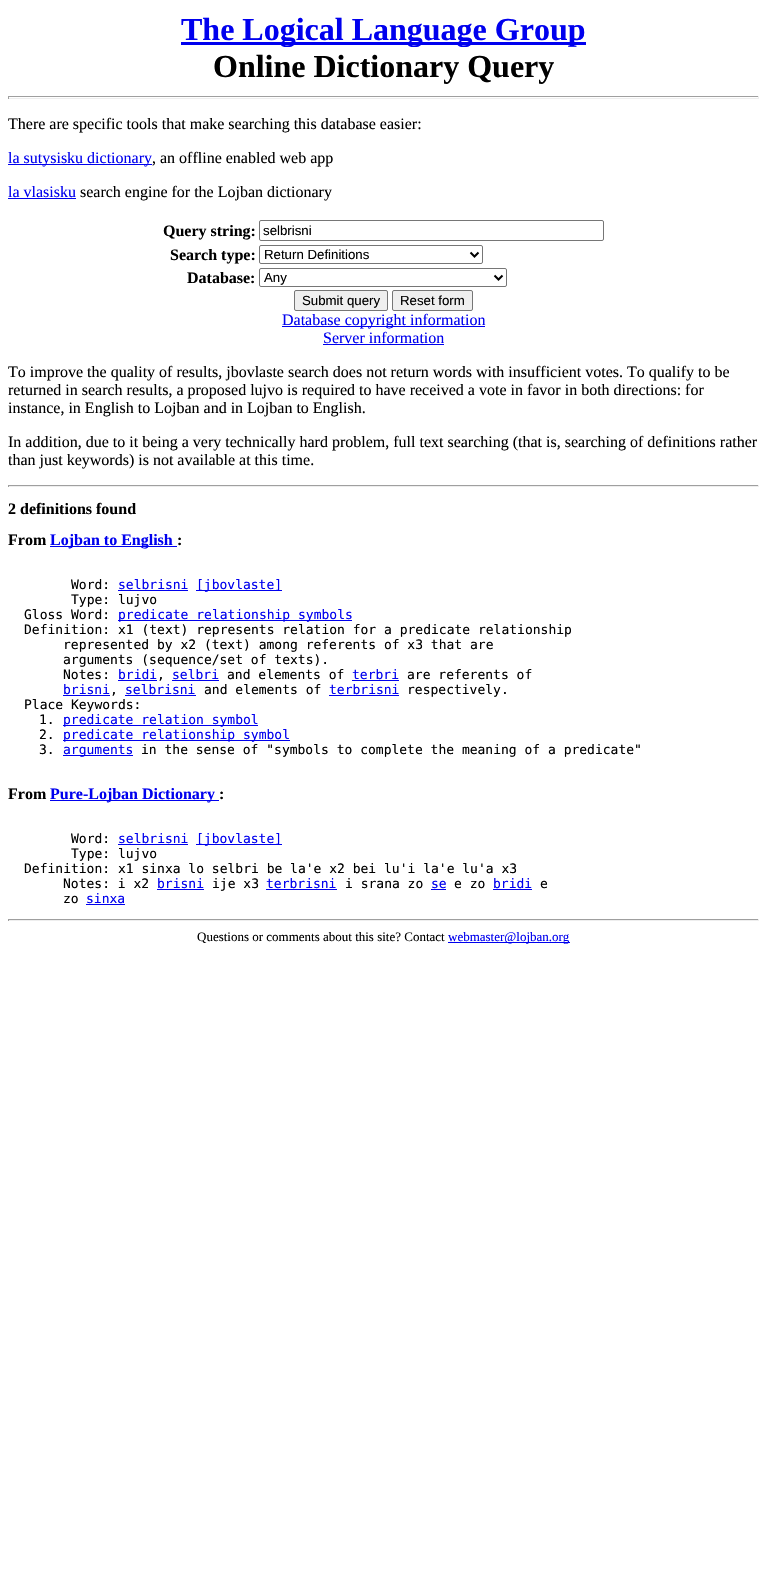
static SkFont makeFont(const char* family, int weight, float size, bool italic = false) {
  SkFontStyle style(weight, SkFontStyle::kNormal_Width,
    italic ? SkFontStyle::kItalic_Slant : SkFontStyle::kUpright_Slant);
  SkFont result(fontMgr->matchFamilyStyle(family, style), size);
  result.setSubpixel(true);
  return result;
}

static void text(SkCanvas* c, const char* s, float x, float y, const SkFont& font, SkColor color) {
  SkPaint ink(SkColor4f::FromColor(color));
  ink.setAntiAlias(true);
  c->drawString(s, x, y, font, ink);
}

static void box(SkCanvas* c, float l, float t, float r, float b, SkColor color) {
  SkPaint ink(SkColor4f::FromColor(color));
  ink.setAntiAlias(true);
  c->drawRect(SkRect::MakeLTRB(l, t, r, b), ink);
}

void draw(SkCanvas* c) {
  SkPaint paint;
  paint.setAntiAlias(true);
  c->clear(0xffffffff);
  box(c, 181, 42, 586, 45, 0xff0000ee);
  SkFont face1 = makeFont("Liberation Serif", 700, 32);
  text(c, "The Logical Language Group", 181, 40, face1, 0xff0000ee);
  text(c, "Online Dictionary Query", 213, 77, face1, 0xff000000);
  box(c, 8, 96, 759, 97, 0xff9f9f9f);
  box(c, 758, 96, 759, 99, 0xffeeeeee);
  box(c, 8, 98, 759, 99, 0xffeeeeee);
  box(c, 8, 96, 9, 99, 0xff9f9f9f);
  SkFont face2 = makeFont("Liberation Serif", 400, 16);
  text(c, "There are specific tools that make searching this database easier:", 8, 129, face2, 0xff000000);
  box(c, 8, 164, 152, 165, 0xff0000ee);
  text(c, "la sutysisku dictionary", 8, 163, face2, 0xff0000ee);
  text(c, ", an offline enabled web app", 152, 163, face2, 0xff000000);
  text(c, "la vlasisku", 8, 197, face2, 0xff0000ee);
  box(c, 8, 198, 76, 199, 0xff0000ee);
  text(c, "search engine for the Lojban dictionary", 80, 197, face2, 0xff000000);
  SkFont face3 = makeFont("Liberation Serif", 700, 16);
  text(c, "Query string:", 163, 236, face3, 0xff000000);
  paint.setStyle(SkPaint::kStroke_Style);
  paint.setStrokeWidth(1);
  paint.setColor(0xff767676);
  c->drawRoundRect(SkRect::MakeLTRB(259.5f, 220.5f, 603.5f, 240.5f), 1.5f, 1.5f, paint);
  SkFont face4 = makeFont("Liberation Sans", 400, 13.25f);
  text(c, "selbrisni", 263, 235, face4, 0xff000000);
  text(c, "Search type:", 170, 260, face3, 0xff000000);
  c->drawRoundRect(SkRect::MakeLTRB(259.5f, 245.5f, 482.5f, 263.5f), 1.5f, 1.5f, paint);
  paint.setStrokeWidth(2);
  paint.setColor(0xff000000);
  c->drawPath(SkPathBuilder().moveTo(470.5f, 252.5f).lineTo(474.5f, 256.5f).lineTo(478.5f, 252.5f).detach(), paint);
  text(c, "Return Definitions", 264, 259, face4, 0xff000000);
  text(c, "Database:", 187, 283, face3, 0xff000000);
  paint.setStrokeWidth(1);
  paint.setColor(0xff767676);
  c->drawRoundRect(SkRect::MakeLTRB(259.5f, 268.5f, 506.5f, 286.5f), 1.5f, 1.5f, paint);
  paint.setStrokeWidth(2);
  paint.setColor(0xff000000);
  c->drawPath(SkPathBuilder().moveTo(494.5f, 275.5f).lineTo(498.5f, 279.5f).lineTo(502.5f, 275.5f).detach(), paint);
  text(c, "Any", 264, 282, face4, 0xff000000);
  paint.setStyle(SkPaint::kFill_Style);
  paint.setColor(0xffefefef);
  c->drawRoundRect(SkRect::MakeLTRB(294.5f, 290.5f, 387.5f, 310.5f), 1.5f, 1.5f, paint);
  paint.setStyle(SkPaint::kStroke_Style);
  paint.setStrokeWidth(1);
  paint.setColor(0xff767676);
  c->drawRoundRect(SkRect::MakeLTRB(294.5f, 290.5f, 387.5f, 310.5f), 1.5f, 1.5f, paint);
  text(c, "Submit query", 302, 305, face4, 0xff000000);
  paint.setStyle(SkPaint::kFill_Style);
  paint.setColor(0xffefefef);
  c->drawRoundRect(SkRect::MakeLTRB(392.5f, 290.5f, 472.5f, 310.5f), 1.5f, 1.5f, paint);
  paint.setStyle(SkPaint::kStroke_Style);
  paint.setColor(0xff767676);
  c->drawRoundRect(SkRect::MakeLTRB(392.5f, 290.5f, 472.5f, 310.5f), 1.5f, 1.5f, paint);
  text(c, "Reset form", 400, 305, face4, 0xff000000);
  box(c, 282, 326, 485, 327, 0xff0000ee);
  text(c, "Database copyright information", 282, 325, face2, 0xff0000ee);
  text(c, "Server information", 323, 343, face2, 0xff0000ee);
  box(c, 323, 344, 444, 345, 0xff0000ee);
  text(c, "To improve the quality of results, jbovlaste search does not return words with insufficient votes. To qualify to be", 8, 377, face2, 0xff000000);
  text(c, "returned in search results, a proposed lujvo is required to have received a vote in favor in both directions: for", 8, 395, face2, 0xff000000);
  text(c, "instance, in English to Lojban and in Lojban to English.", 8, 413, face2, 0xff000000);
  text(c, "In addition, due to it being a very technically hard problem, full text searching (that is, searching of definitions rather", 8, 447, face2, 0xff000000);
  text(c, "than just keywords) is not available at this time.", 8, 465, face2, 0xff000000);
  box(c, 8, 485, 759, 486, 0xff9f9f9f);
  box(c, 758, 485, 759, 487, 0xffeeeeee);
  box(c, 8, 486, 759, 487, 0xffeeeeee);
  box(c, 8, 485, 9, 487, 0xff9f9f9f);
  text(c, "2 definitions found", 8, 514, face3, 0xff000000);
  text(c, "From", 8, 545, face3, 0xff000000);
  box(c, 50, 546, 177, 547, 0xff0000ee);
  text(c, "Lojban to English", 50, 545, face3, 0xff0000ee);
  text(c, ":", 177, 545, face3, 0xff000000);
  SkFont face5 = makeFont("DejaVu Sans Mono", 400, 13);
  text(c, "Word:", 71, 589, face5, 0xff000000);
  text(c, "selbrisni", 118, 589, face5, 0xff0000ee);
  box(c, 118, 590, 188, 591, 0xff0000ee);
  box(c, 196, 590, 282, 591, 0xff0000ee);
  text(c, "[jbovlaste]", 196, 589, face5, 0xff0000ee);
  text(c, "Type: lujvo", 71, 604, face5, 0xff000000);
  text(c, "Gloss Word:", 24, 619, face5, 0xff000000);
  box(c, 118, 620, 352, 621, 0xff0000ee);
  text(c, "predicate relationship symbols", 118, 619, face5, 0xff0000ee);
  text(c, "Definition: x1 (text) represents relation for a predicate relationship", 24, 634, face5, 0xff000000);
  text(c, "represented by x2 (text) among referents of x3 that are", 63, 649, face5, 0xff000000);
  text(c, "arguments (sequence/set of texts).", 63, 664, face5, 0xff000000);
  text(c, "Notes:", 63, 679, face5, 0xff000000);
  text(c, "bridi", 118, 679, face5, 0xff0000ee);
  box(c, 118, 680, 157, 681, 0xff0000ee);
  text(c, ",", 157, 679, face5, 0xff000000);
  text(c, "selbri", 172, 679, face5, 0xff0000ee);
  box(c, 172, 680, 219, 681, 0xff0000ee);
  text(c, "and elements of", 227, 679, face5, 0xff000000);
  text(c, "terbri", 352, 679, face5, 0xff0000ee);
  box(c, 352, 680, 399, 681, 0xff0000ee);
  text(c, "are referents of", 407, 679, face5, 0xff000000);
  text(c, "brisni", 63, 694, face5, 0xff0000ee);
  box(c, 63, 695, 110, 696, 0xff0000ee);
  text(c, ",", 110, 694, face5, 0xff000000);
  text(c, "selbrisni", 125, 694, face5, 0xff0000ee);
  box(c, 125, 695, 196, 696, 0xff0000ee);
  text(c, "and elements of", 204, 694, face5, 0xff000000);
  text(c, "terbrisni", 329, 694, face5, 0xff0000ee);
  box(c, 329, 695, 399, 696, 0xff0000ee);
  text(c, "respectively.", 407, 694, face5, 0xff000000);
  text(c, "Place Keywords:", 24, 709, face5, 0xff000000);
  text(c, "1.", 39, 724, face5, 0xff000000);
  box(c, 63, 725, 258, 726, 0xff0000ee);
  text(c, "predicate relation symbol", 63, 724, face5, 0xff0000ee);
  text(c, "2.", 39, 739, face5, 0xff000000);
  box(c, 63, 740, 290, 741, 0xff0000ee);
  text(c, "predicate relationship symbol", 63, 739, face5, 0xff0000ee);
  text(c, "3.", 39, 754, face5, 0xff000000);
  box(c, 63, 755, 133, 756, 0xff0000ee);
  text(c, "arguments", 63, 754, face5, 0xff0000ee);
  text(c, "in the sense of \"symbols to complete the meaning of a predicate\"", 141, 754, face5, 0xff000000);
  text(c, "From", 8, 799, face3, 0xff000000);
  box(c, 50, 800, 219, 801, 0xff0000ee);
  text(c, "Pure-Lojban Dictionary", 50, 799, face3, 0xff0000ee);
  text(c, ":", 219, 799, face3, 0xff000000);
  text(c, "Word:", 71, 843, face5, 0xff000000);
  text(c, "selbrisni", 118, 843, face5, 0xff0000ee);
  box(c, 118, 844, 188, 845, 0xff0000ee);
  box(c, 196, 844, 282, 845, 0xff0000ee);
  text(c, "[jbovlaste]", 196, 843, face5, 0xff0000ee);
  text(c, "Type: lujvo", 71, 858, face5, 0xff000000);
  text(c, "Definition: x1 sinxa lo selbri be la'e x2 bei lu'i la'e lu'a x3", 24, 873, face5, 0xff000000);
  text(c, "Notes: i x2", 63, 888, face5, 0xff000000);
  text(c, "brisni", 157, 888, face5, 0xff0000ee);
  box(c, 157, 889, 204, 890, 0xff0000ee);
  text(c, "ije x3", 212, 888, face5, 0xff000000);
  text(c, "terbrisni", 266, 888, face5, 0xff0000ee);
  box(c, 266, 889, 337, 890, 0xff0000ee);
  text(c, "i srana zo", 345, 888, face5, 0xff000000);
  text(c, "se", 431, 888, face5, 0xff0000ee);
  box(c, 431, 889, 446, 890, 0xff0000ee);
  text(c, "e zo", 454, 888, face5, 0xff000000);
  text(c, "bridi", 493, 888, face5, 0xff0000ee);
  box(c, 493, 889, 532, 890, 0xff0000ee);
  text(c, "e", 540, 888, face5, 0xff000000);
  text(c, "zo", 63, 903, face5, 0xff000000);
  text(c, "sinxa", 86, 903, face5, 0xff0000ee);
  box(c, 86, 904, 125, 905, 0xff0000ee);
  box(c, 8, 919, 759, 920, 0xff9f9f9f);
  box(c, 758, 919, 759, 921, 0xffeeeeee);
  box(c, 8, 920, 759, 921, 0xffeeeeee);
  box(c, 8, 919, 9, 921, 0xff9f9f9f);
  SkFont face6 = makeFont("Liberation Serif", 400, 13);
  text(c, "Questions or comments about this site? Contact", 197, 941, face6, 0xff000000);
  box(c, 448, 942, 570, 943, 0xff0000ee);
  text(c, "webmaster@lojban.org", 448, 941, face6, 0xff0000ee);
}
